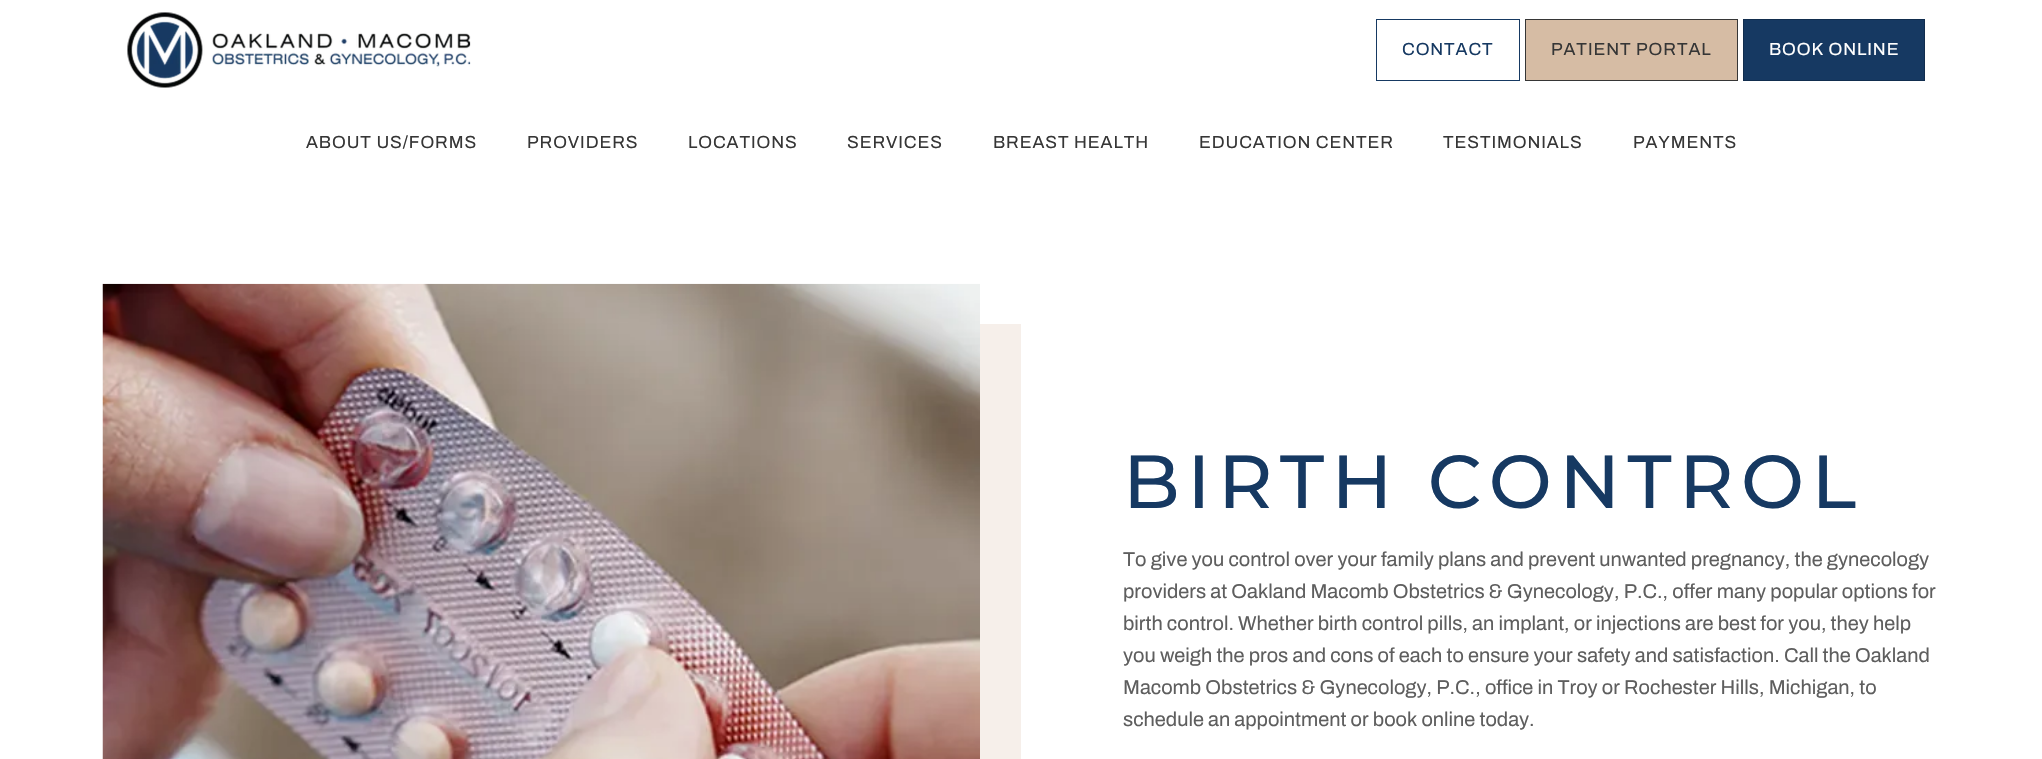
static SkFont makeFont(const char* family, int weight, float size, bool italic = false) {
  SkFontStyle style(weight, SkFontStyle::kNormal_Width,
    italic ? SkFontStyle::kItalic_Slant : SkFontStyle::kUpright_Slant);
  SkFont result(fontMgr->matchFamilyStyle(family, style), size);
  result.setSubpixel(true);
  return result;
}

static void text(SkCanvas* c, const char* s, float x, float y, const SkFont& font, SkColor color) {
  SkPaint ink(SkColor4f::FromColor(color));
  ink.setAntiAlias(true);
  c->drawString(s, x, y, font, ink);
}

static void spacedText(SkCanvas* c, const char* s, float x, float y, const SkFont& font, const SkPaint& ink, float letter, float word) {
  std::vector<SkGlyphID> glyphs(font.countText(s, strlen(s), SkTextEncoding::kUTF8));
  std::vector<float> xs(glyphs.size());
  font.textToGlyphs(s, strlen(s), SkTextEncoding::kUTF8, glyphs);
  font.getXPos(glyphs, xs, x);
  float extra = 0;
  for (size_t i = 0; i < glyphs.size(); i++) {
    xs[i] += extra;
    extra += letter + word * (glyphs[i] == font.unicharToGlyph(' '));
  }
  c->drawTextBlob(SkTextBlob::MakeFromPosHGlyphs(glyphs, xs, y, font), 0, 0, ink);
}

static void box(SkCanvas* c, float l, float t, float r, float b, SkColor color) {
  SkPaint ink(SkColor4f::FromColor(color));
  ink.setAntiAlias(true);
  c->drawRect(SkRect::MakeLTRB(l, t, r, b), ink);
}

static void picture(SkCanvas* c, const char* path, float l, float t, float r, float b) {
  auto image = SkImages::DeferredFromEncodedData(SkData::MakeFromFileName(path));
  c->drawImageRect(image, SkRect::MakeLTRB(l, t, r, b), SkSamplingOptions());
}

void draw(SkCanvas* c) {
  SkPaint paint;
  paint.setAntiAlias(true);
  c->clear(0xffffffff);
  picture(c, "img_01.png", 127, 12, 471, 88);
  paint.setStyle(SkPaint::kStroke_Style);
  paint.setStrokeWidth(1);
  paint.setColor(0xff163962);
  c->drawRect(SkRect::MakeLTRB(1376.5f, 19.5f, 1519.5f, 80.5f), paint);
  SkFont face1 = makeFont("Archivo", 400, 17.5f);
  paint.setStyle(SkPaint::kFill_Style);
  spacedText(c, "CONTACT", 1402, 55, face1, paint, 0.9f, 0);
  paint.setColor(0xffd6bca4);
  c->drawRect(SkRect::MakeLTRB(1525.5f, 19.5f, 1737.5f, 80.5f), paint);
  paint.setStyle(SkPaint::kStroke_Style);
  paint.setColor(0xff363636);
  c->drawRect(SkRect::MakeLTRB(1525.5f, 19.5f, 1737.5f, 80.5f), paint);
  paint.setStyle(SkPaint::kFill_Style);
  spacedText(c, "PATIENT PORTAL", 1551, 55, face1, paint, 0.9f, 0);
  paint.setColor(0xff163962);
  c->drawRect(SkRect::MakeLTRB(1743.5f, 19.5f, 1924.5f, 80.5f), paint);
  paint.setStyle(SkPaint::kStroke_Style);
  paint.setColor(0xff112d4e);
  c->drawRect(SkRect::MakeLTRB(1743.5f, 19.5f, 1924.5f, 80.5f), paint);
  paint.setStyle(SkPaint::kFill_Style);
  paint.setColor(0xffffffff);
  spacedText(c, "BOOK ONLINE", 1769, 55, face1, paint, 0.9f, 0);
  paint.setColor(0xff363636);
  spacedText(c, "ABOUT US/FORMS", 306, 148, face1, paint, 0.9f, 0);
  spacedText(c, "PROVIDERS", 527, 148, face1, paint, 0.9f, 0);
  spacedText(c, "LOCATIONS", 688, 148, face1, paint, 0.9f, 0);
  spacedText(c, "SERVICES", 847, 148, face1, paint, 0.9f, 0);
  spacedText(c, "BREAST HEALTH", 993, 148, face1, paint, 0.9f, 0);
  spacedText(c, "EDUCATION CENTER", 1199, 148, face1, paint, 0.9f, 0);
  spacedText(c, "TESTIMONIALS", 1443, 148, face1, paint, 0.9f, 0);
  spacedText(c, "PAYMENTS", 1633, 148, face1, paint, 0.9f, 0);
  picture(c, "img_02.png", 102, 283, 980, 759);
  box(c, 980, 324, 1021, 759, 0xfff6efea);
  SkFont face2 = makeFont("Montserrat", 500, 75);
  paint.setColor(0xff163962);
  spacedText(c, "BIRTH CONTROL", 1123, 508, face2, paint, 7.5f, 0);
  SkFont face3 = makeFont("Archivo", 400, 20);
  text(c, "To give you control over your family plans and prevent unwanted pregnancy, the gynecology", 1123, 566, face3, 0xff5e5e5e);
  text(c, "providers at Oakland Macomb Obstetrics & Gynecology, P.C., offer many popular options for", 1123, 598, face3, 0xff5e5e5e);
  text(c, "birth control. Whether birth control pills, an implant, or injections are best for you, they help", 1123, 630, face3, 0xff5e5e5e);
  text(c, "you weigh the pros and cons of each to ensure your safety and satisfaction. Call the Oakland", 1123, 662, face3, 0xff5e5e5e);
  text(c, "Macomb Obstetrics & Gynecology, P.C., office in Troy or Rochester Hills, Michigan, to", 1123, 694, face3, 0xff5e5e5e);
  text(c, "schedule an appointment or book online today.", 1123, 726, face3, 0xff5e5e5e);
}
